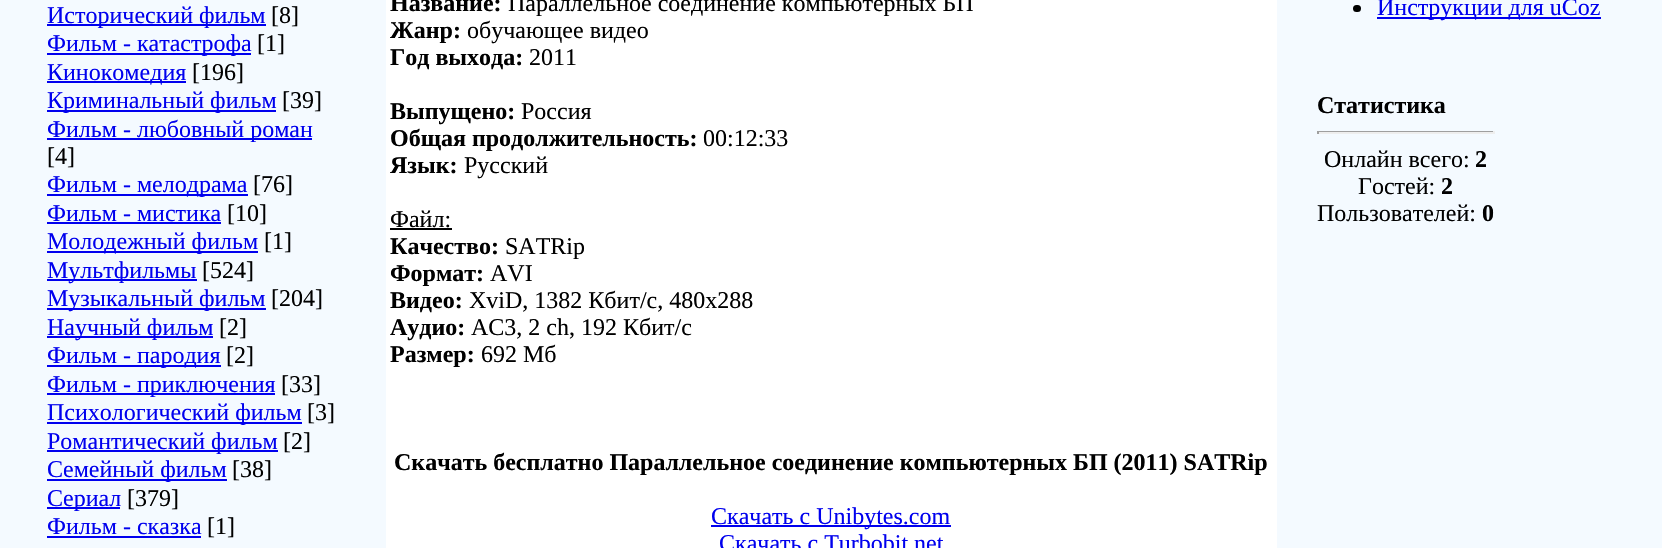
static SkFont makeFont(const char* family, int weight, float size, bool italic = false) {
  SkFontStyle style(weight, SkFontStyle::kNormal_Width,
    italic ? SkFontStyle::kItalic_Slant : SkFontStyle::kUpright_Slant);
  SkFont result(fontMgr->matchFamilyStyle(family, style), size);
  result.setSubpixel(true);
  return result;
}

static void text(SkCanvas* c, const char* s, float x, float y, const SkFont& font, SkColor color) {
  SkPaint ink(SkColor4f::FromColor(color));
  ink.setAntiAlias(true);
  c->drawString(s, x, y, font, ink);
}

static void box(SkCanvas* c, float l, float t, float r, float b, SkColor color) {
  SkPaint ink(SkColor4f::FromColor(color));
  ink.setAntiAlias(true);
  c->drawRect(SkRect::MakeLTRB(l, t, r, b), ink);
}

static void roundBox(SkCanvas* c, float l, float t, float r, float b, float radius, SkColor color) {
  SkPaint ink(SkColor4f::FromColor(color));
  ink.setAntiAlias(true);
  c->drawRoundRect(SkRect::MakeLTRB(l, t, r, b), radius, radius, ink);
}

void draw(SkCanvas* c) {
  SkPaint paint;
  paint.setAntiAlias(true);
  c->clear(0xfff4faff);
  box(c, 47, 24, 266, 26, 0xff0000ee);
  SkFont face1 = makeFont("Liberation Serif", 400, 24);
  text(c, "Исторический фильм", 47, 23, face1, 0xff0000ee);
  text(c, "[8]", 271, 23, face1, 0xff000000);
  box(c, 47, 53, 251, 55, 0xff0000ee);
  text(c, "Фильм - катастрофа", 47, 51, face1, 0xff0000ee);
  text(c, "[1]", 257, 51, face1, 0xff000000);
  box(c, 47, 81, 186, 83, 0xff0000ee);
  text(c, "Кинокомедия", 47, 80, face1, 0xff0000ee);
  text(c, "[196]", 192, 80, face1, 0xff000000);
  box(c, 47, 110, 276, 112, 0xff0000ee);
  text(c, "Криминальный фильм", 47, 108, face1, 0xff0000ee);
  text(c, "[39]", 282, 108, face1, 0xff000000);
  box(c, 47, 138, 312, 140, 0xff0000ee);
  text(c, "Фильм - любовный роман", 47, 137, face1, 0xff0000ee);
  text(c, "[4]", 47, 164, face1, 0xff000000);
  box(c, 47, 194, 248, 196, 0xff0000ee);
  text(c, "Фильм - мелодрама", 47, 192, face1, 0xff0000ee);
  text(c, "[76]", 253, 192, face1, 0xff000000);
  text(c, "Фильм - мистика", 47, 221, face1, 0xff0000ee);
  box(c, 47, 222, 221, 224, 0xff0000ee);
  text(c, "[10]", 227, 221, face1, 0xff000000);
  box(c, 47, 251, 258, 253, 0xff0000ee);
  text(c, "Молодежный фильм", 47, 249, face1, 0xff0000ee);
  text(c, "[1]", 264, 249, face1, 0xff000000);
  box(c, 47, 279, 197, 281, 0xff0000ee);
  text(c, "Мультфильмы", 47, 278, face1, 0xff0000ee);
  text(c, "[524]", 202, 278, face1, 0xff000000);
  box(c, 47, 308, 266, 310, 0xff0000ee);
  text(c, "Музыкальный фильм", 47, 306, face1, 0xff0000ee);
  text(c, "[204]", 271, 306, face1, 0xff000000);
  box(c, 47, 336, 213, 338, 0xff0000ee);
  text(c, "Научный фильм", 47, 335, face1, 0xff0000ee);
  text(c, "[2]", 219, 335, face1, 0xff000000);
  box(c, 47, 365, 221, 367, 0xff0000ee);
  text(c, "Фильм - пародия", 47, 363, face1, 0xff0000ee);
  text(c, "[2]", 226, 363, face1, 0xff000000);
  box(c, 47, 393, 275, 395, 0xff0000ee);
  text(c, "Фильм - приключения", 47, 392, face1, 0xff0000ee);
  text(c, "[33]", 281, 392, face1, 0xff000000);
  box(c, 47, 422, 302, 424, 0xff0000ee);
  text(c, "Психологический фильм", 47, 420, face1, 0xff0000ee);
  text(c, "[3]", 307, 420, face1, 0xff000000);
  box(c, 47, 450, 278, 452, 0xff0000ee);
  text(c, "Романтический фильм", 47, 449, face1, 0xff0000ee);
  text(c, "[2]", 283, 449, face1, 0xff000000);
  box(c, 47, 479, 227, 481, 0xff0000ee);
  text(c, "Семейный фильм", 47, 477, face1, 0xff0000ee);
  text(c, "[38]", 232, 477, face1, 0xff000000);
  box(c, 47, 507, 120, 509, 0xff0000ee);
  text(c, "Сериал", 47, 506, face1, 0xff0000ee);
  text(c, "[379]", 127, 506, face1, 0xff000000);
  text(c, "Фильм - сказка", 47, 534, face1, 0xff0000ee);
  box(c, 47, 536, 201, 538, 0xff0000ee);
  text(c, "[1]", 207, 534, face1, 0xff000000);
  box(c, 386, 0, 1277, 548, 0xffffffff);
  SkFont face2 = makeFont("Liberation Serif", 700, 24);
  text(c, "Название:", 390, 11, face2, 0xff000000);
  text(c, "Параллельное соединение компьютерных БП", 508, 11, face1, 0xff000000);
  text(c, "Жанр:", 390, 38, face2, 0xff000000);
  text(c, "обучающее видео", 467, 38, face1, 0xff000000);
  text(c, "Год выхода:", 390, 65, face2, 0xff000000);
  text(c, "2011", 529, 65, face1, 0xff000000);
  text(c, "Выпущено:", 390, 119, face2, 0xff000000);
  text(c, "Россия", 521, 119, face1, 0xff000000);
  text(c, "Общая продолжительность:", 390, 146, face2, 0xff000000);
  text(c, "00:12:33", 703, 146, face1, 0xff000000);
  text(c, "Язык:", 390, 173, face2, 0xff000000);
  text(c, "Русский", 464, 173, face1, 0xff000000);
  text(c, "Файл:", 390, 227, face1, 0xff000000);
  box(c, 390, 228, 452, 230, 0xff000000);
  text(c, "Качество:", 390, 254, face2, 0xff000000);
  text(c, "SATRip", 505, 254, face1, 0xff000000);
  text(c, "Формат:", 390, 281, face2, 0xff000000);
  text(c, "AVI", 490, 281, face1, 0xff000000);
  text(c, "Видео:", 390, 308, face2, 0xff000000);
  text(c, "XviD, 1382 Кбит/с, 480x288", 469, 308, face1, 0xff000000);
  text(c, "Аудио:", 390, 335, face2, 0xff000000);
  text(c, "AC3, 2 ch, 192 Кбит/с", 471, 335, face1, 0xff000000);
  text(c, "Размер:", 390, 362, face2, 0xff000000);
  text(c, "692 Мб", 481, 362, face1, 0xff000000);
  text(c, "Скачать бесплатно Параллельное соединение компьютерных БП (2011) SATRip", 394, 470, face2, 0xff000000);
  box(c, 711, 525, 951, 527, 0xff0000ee);
  text(c, "Скачать с Unibytes.com", 711, 524, face1, 0xff0000ee);
  text(c, "Скачать с Turbobit.net", 719, 551, face1, 0xff0000ee);
  roundBox(c, 1353, 5, 1361, 12, 3.5f, 0xff000000);
  box(c, 1377, 17, 1601, 19, 0xff0000ee);
  text(c, "Инструкции для uCoz", 1377, 15, face1, 0xff0000ee);
  text(c, "Статистика", 1317, 113, face2, 0xff000000);
  box(c, 1317, 131, 1494, 132, 0xff9f9f9f);
  box(c, 1493, 131, 1495, 134, 0xffeeeeee);
  box(c, 1317, 132, 1494, 134, 0xffeeeeee);
  box(c, 1317, 131, 1319, 134, 0xff9f9f9f);
  text(c, "Онлайн всего:", 1324, 167, face1, 0xff000000);
  text(c, "2", 1475, 167, face2, 0xff000000);
  text(c, "Гостей:", 1358, 194, face1, 0xff000000);
  text(c, "2", 1441, 194, face2, 0xff000000);
  text(c, "Пользователей:", 1317, 221, face1, 0xff000000);
  text(c, "0", 1482, 221, face2, 0xff000000);
}
